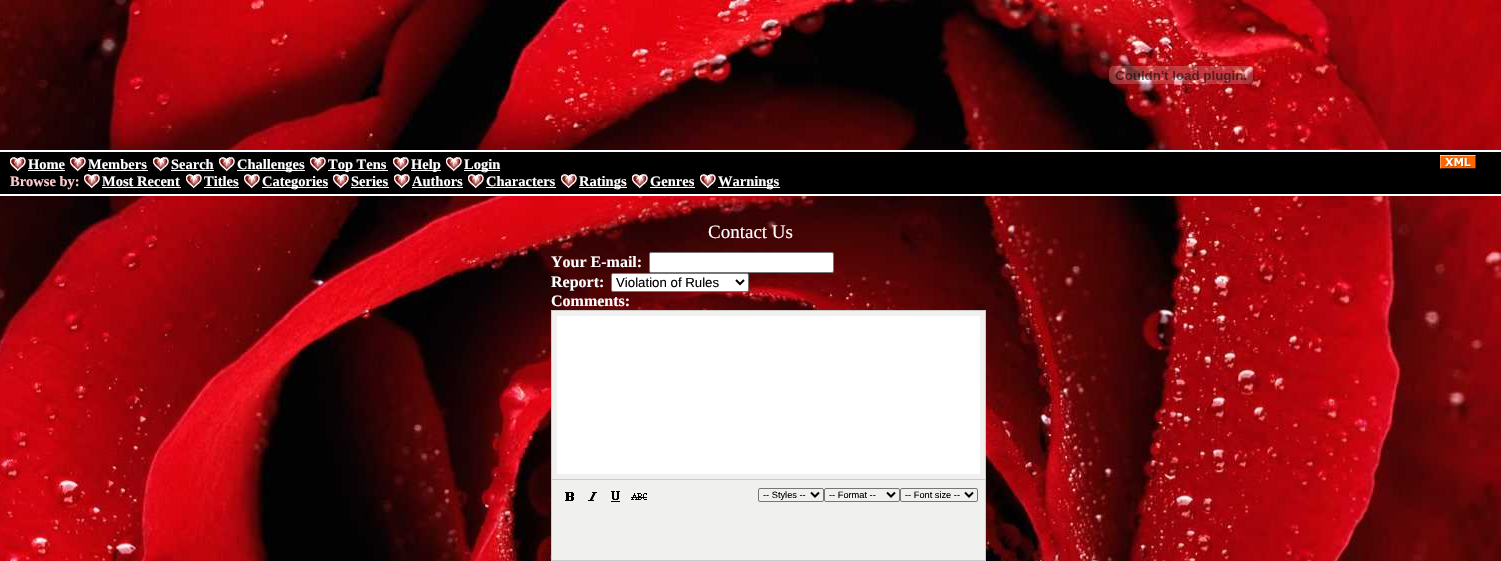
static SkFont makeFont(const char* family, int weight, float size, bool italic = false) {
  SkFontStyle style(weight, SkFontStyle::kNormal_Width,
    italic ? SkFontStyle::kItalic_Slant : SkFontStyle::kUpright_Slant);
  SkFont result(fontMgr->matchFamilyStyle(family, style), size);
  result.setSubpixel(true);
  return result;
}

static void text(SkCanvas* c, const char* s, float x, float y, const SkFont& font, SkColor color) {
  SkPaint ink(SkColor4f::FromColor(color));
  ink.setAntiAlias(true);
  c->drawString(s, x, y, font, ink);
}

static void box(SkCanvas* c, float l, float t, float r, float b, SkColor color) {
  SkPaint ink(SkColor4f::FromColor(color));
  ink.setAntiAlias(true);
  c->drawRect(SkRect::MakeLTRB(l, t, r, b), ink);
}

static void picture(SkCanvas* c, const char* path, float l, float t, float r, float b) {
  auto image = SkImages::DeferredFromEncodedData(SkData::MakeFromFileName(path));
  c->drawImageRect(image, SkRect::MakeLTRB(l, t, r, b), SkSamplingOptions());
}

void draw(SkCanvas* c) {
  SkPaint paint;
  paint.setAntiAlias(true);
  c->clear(0xffffffff);
  picture(c, "img_01.png", 0, 196, 1501, 561);
  picture(c, "img_02.png", 0, 0, 1501, 150);
  picture(c, "img_03.png", 1109, 66, 1253, 84);
  box(c, 0, 152, 1501, 194, 0xff000000);
  picture(c, "img_04.png", 1440, 155, 1476, 169);
  picture(c, "img_05.png", 10, 156, 27, 172);
  SkFont face1 = makeFont("Liberation Serif", 700, 14.5f);
  text(c, "Home", 28, 169, face1, 0xffffffff);
  box(c, 28, 170, 65, 171, 0xffffffff);
  picture(c, "img_05.png", 70, 156, 87, 172);
  text(c, "Members", 88, 169, face1, 0xffffffff);
  box(c, 88, 170, 148, 171, 0xffffffff);
  picture(c, "img_05.png", 153, 156, 170, 172);
  text(c, "Search", 171, 169, face1, 0xffffffff);
  box(c, 171, 170, 214, 171, 0xffffffff);
  picture(c, "img_05.png", 219, 156, 236, 172);
  box(c, 237, 170, 305, 171, 0xffffffff);
  text(c, "Challenges", 237, 169, face1, 0xffffffff);
  picture(c, "img_05.png", 310, 156, 327, 172);
  box(c, 328, 170, 388, 171, 0xffffffff);
  text(c, "Top Tens", 328, 169, face1, 0xffffffff);
  picture(c, "img_05.png", 393, 156, 410, 172);
  box(c, 411, 170, 441, 171, 0xffffffff);
  text(c, "Help", 411, 169, face1, 0xffffffff);
  picture(c, "img_05.png", 446, 156, 463, 172);
  box(c, 464, 170, 500, 171, 0xffffffff);
  text(c, "Login", 464, 169, face1, 0xffffffff);
  text(c, "Browse by:", 10, 186, face1, 0xffffcccc);
  picture(c, "img_05.png", 84, 173, 101, 189);
  text(c, "Most Recent", 102, 186, face1, 0xffffffff);
  box(c, 102, 187, 181, 188, 0xffffffff);
  picture(c, "img_05.png", 186, 173, 203, 189);
  text(c, "Titles", 204, 186, face1, 0xffffffff);
  box(c, 204, 187, 239, 188, 0xffffffff);
  picture(c, "img_05.png", 244, 173, 261, 189);
  box(c, 262, 187, 328, 188, 0xffffffff);
  text(c, "Categories", 262, 186, face1, 0xffffffff);
  picture(c, "img_05.png", 333, 173, 350, 189);
  text(c, "Series", 351, 186, face1, 0xffffffff);
  box(c, 351, 187, 389, 188, 0xffffffff);
  picture(c, "img_05.png", 394, 173, 411, 189);
  text(c, "Authors", 412, 186, face1, 0xffffffff);
  box(c, 412, 187, 463, 188, 0xffffffff);
  picture(c, "img_05.png", 468, 173, 485, 189);
  text(c, "Characters", 486, 186, face1, 0xffffffff);
  box(c, 486, 187, 556, 188, 0xffffffff);
  picture(c, "img_05.png", 561, 173, 578, 189);
  box(c, 579, 187, 627, 188, 0xffffffff);
  text(c, "Ratings", 579, 186, face1, 0xffffffff);
  picture(c, "img_05.png", 632, 173, 649, 189);
  text(c, "Genres", 650, 186, face1, 0xffffffff);
  box(c, 650, 187, 695, 188, 0xffffffff);
  picture(c, "img_05.png", 700, 173, 717, 189);
  box(c, 718, 187, 780, 188, 0xffffffff);
  text(c, "Warnings", 718, 186, face1, 0xffffffff);
  SkFont face2 = makeFont("Liberation Serif", 400, 19);
  text(c, "Contact Us", 708, 238, face2, 0xffffffff);
  SkFont face3 = makeFont("Liberation Serif", 700, 16);
  text(c, "Your E-mail:", 551, 267, face3, 0xffffffff);
  paint.setColor(0xffffffff);
  c->drawRoundRect(SkRect::MakeLTRB(649.5f, 252.5f, 833.5f, 272.5f), 1.5f, 1.5f, paint);
  paint.setStyle(SkPaint::kStroke_Style);
  paint.setStrokeWidth(1);
  paint.setColor(0xff767676);
  c->drawRoundRect(SkRect::MakeLTRB(649.5f, 252.5f, 833.5f, 272.5f), 1.5f, 1.5f, paint);
  text(c, "Report:", 551, 287, face3, 0xffffffff);
  paint.setStyle(SkPaint::kFill_Style);
  paint.setColor(0xffffffff);
  c->drawRoundRect(SkRect::MakeLTRB(611.5f, 273.5f, 748.5f, 291.5f), 1.5f, 1.5f, paint);
  paint.setStyle(SkPaint::kStroke_Style);
  paint.setColor(0xff767676);
  c->drawRoundRect(SkRect::MakeLTRB(611.5f, 273.5f, 748.5f, 291.5f), 1.5f, 1.5f, paint);
  paint.setStrokeWidth(2);
  paint.setColor(0xff000000);
  c->drawPath(SkPathBuilder().moveTo(736, 280).lineTo(740, 284).lineTo(744, 280).detach(), paint);
  SkFont face4 = makeFont("Liberation Sans", 400, 13.25f);
  text(c, "Violation of Rules", 616, 287, face4, 0xff000000);
  text(c, "Comments:", 551, 306, face3, 0xffffffff);
  box(c, 552, 311, 985, 560, 0xfff0f0ee);
  paint.setStrokeWidth(1);
  paint.setColor(0xffcccccc);
  c->drawRect(SkRect::MakeLTRB(551.5f, 310.5f, 985.5f, 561.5f), paint);
  box(c, 557, 316, 980, 474, 0xffffffff);
  box(c, 552, 479, 985, 480, 0xffcccccc);
  picture(c, "img_06.png", 565, 492, 574, 501);
  picture(c, "img_07.png", 588, 492, 597, 501);
  picture(c, "img_08.png", 611, 491, 620, 502);
  picture(c, "img_09.png", 631, 493, 647, 500);
  paint.setColor(0xff767676);
  c->drawRoundRect(SkRect::MakeLTRB(758.5f, 488.5f, 823.5f, 501.5f), 1.5f, 1.5f, paint);
  paint.setStrokeWidth(2);
  paint.setColor(0xff000000);
  c->drawPath(SkPathBuilder().moveTo(811, 492.5f).lineTo(815, 496.5f).lineTo(819, 492.5f).detach(), paint);
  SkFont face5 = makeFont("Liberation Sans", 400, 9.25f);
  text(c, "-- Styles --", 763, 498, face5, 0xff000000);
  paint.setStrokeWidth(1);
  paint.setColor(0xff767676);
  c->drawRoundRect(SkRect::MakeLTRB(824.5f, 488.5f, 899.5f, 501.5f), 1.5f, 1.5f, paint);
  paint.setStrokeWidth(2);
  paint.setColor(0xff000000);
  c->drawPath(SkPathBuilder().moveTo(887, 492.5f).lineTo(891, 496.5f).lineTo(895, 492.5f).detach(), paint);
  text(c, "-- Format --", 829, 498, face5, 0xff000000);
  paint.setStrokeWidth(1);
  paint.setColor(0xff767676);
  c->drawRoundRect(SkRect::MakeLTRB(900.5f, 488.5f, 977.5f, 501.5f), 1.5f, 1.5f, paint);
  paint.setStrokeWidth(2);
  paint.setColor(0xff000000);
  c->drawPath(SkPathBuilder().moveTo(965, 492.5f).lineTo(969, 496.5f).lineTo(973, 492.5f).detach(), paint);
  text(c, "-- Font size --", 905, 498, face5, 0xff000000);
  box(c, 552, 560, 985, 561, 0xffcccccc);
}
